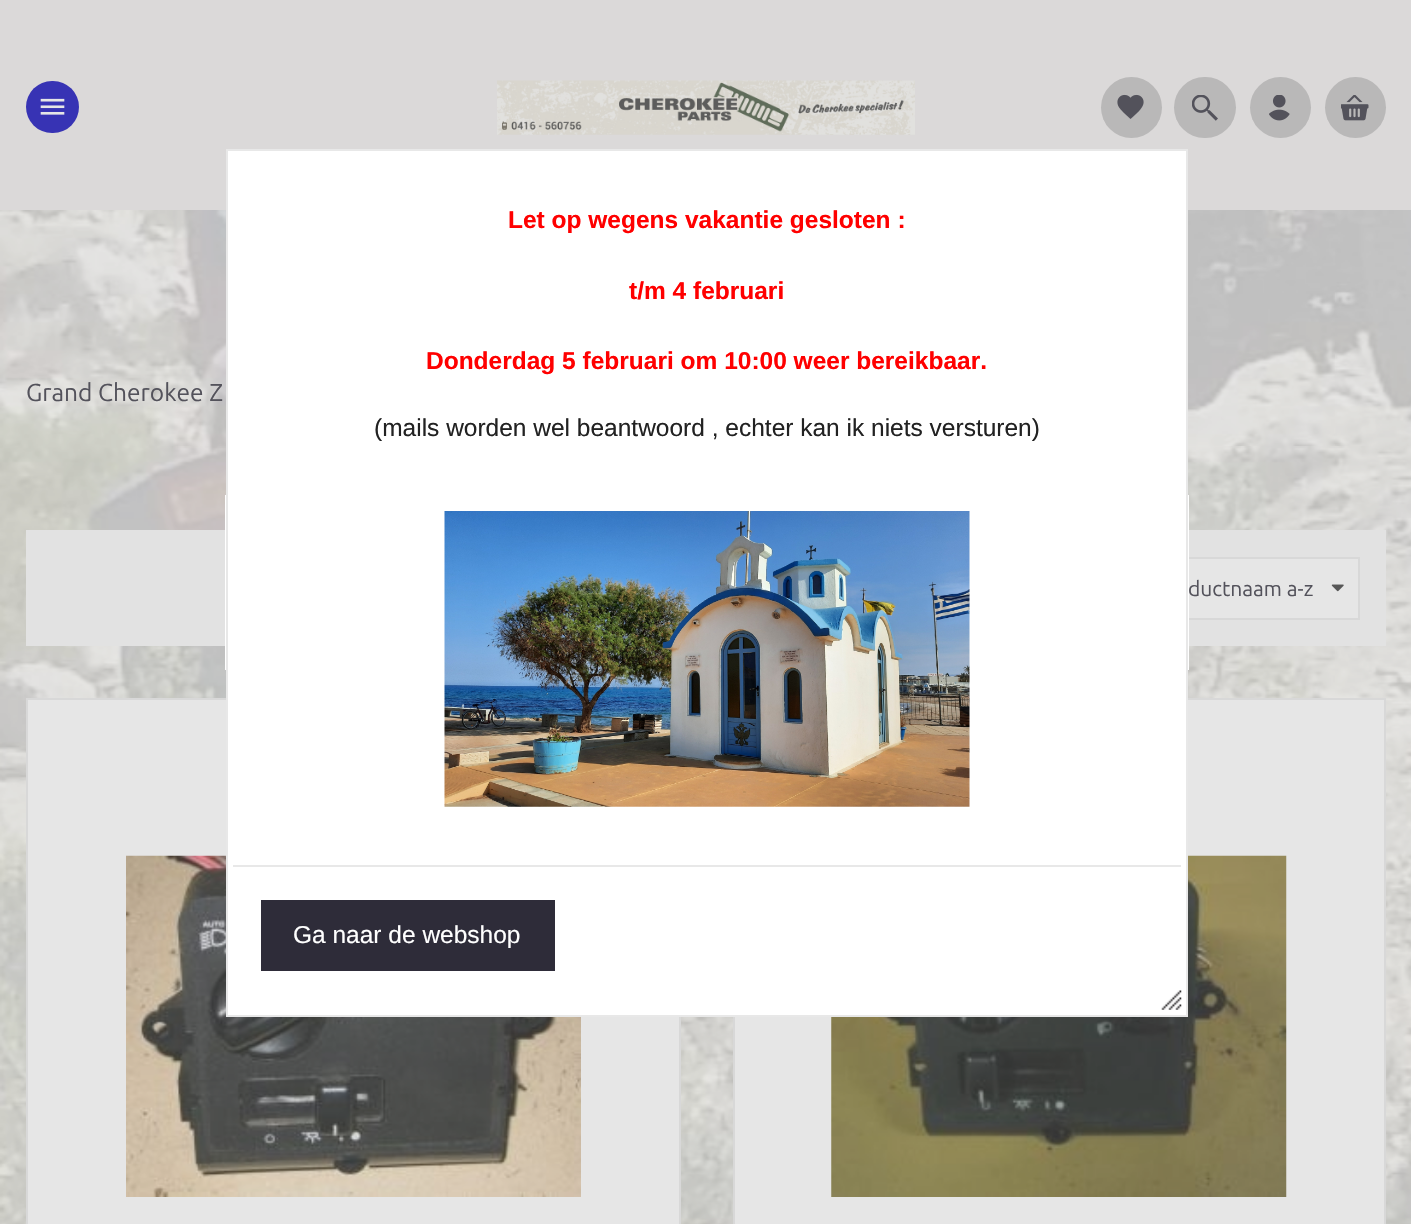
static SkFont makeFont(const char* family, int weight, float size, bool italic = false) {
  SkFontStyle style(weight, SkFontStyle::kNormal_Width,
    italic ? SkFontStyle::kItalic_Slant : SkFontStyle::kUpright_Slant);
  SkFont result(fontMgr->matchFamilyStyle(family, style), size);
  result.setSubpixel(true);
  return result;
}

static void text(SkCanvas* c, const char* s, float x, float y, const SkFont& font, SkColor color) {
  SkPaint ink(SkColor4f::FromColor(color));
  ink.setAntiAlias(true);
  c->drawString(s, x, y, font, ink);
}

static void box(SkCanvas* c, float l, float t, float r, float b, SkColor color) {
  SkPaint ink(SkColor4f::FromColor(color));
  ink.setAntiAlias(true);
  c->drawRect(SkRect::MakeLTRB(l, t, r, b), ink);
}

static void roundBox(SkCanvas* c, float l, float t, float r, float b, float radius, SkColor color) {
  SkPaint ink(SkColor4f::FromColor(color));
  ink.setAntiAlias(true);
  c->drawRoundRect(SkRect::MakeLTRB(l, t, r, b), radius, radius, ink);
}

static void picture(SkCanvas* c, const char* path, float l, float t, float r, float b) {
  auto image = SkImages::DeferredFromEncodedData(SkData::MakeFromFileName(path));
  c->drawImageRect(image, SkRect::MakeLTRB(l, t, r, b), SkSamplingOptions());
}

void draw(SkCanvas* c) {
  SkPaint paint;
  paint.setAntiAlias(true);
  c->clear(0xffffffff);
  picture(c, "img_01.png", 0, 210, 1411, 1224);
  box(c, 0, 0, 1411, 210, 0xffdbd9d9);
  roundBox(c, 26, 81, 79, 133, 26, 0xff3733b4);
  picture(c, "img_02.png", 40, 98, 65, 115);
  picture(c, "img_03.png", 497, 80, 915, 135);
  paint.setColor(0xffb9b8b8);
  c->drawCircle(1131.5f, 107.5f, 30.5f, paint);
  picture(c, "img_04.png", 1117, 94, 1144, 119);
  roundBox(c, 1174, 77, 1236, 138, 30.5f, 0xffb9b8b8);
  picture(c, "img_05.png", 1192, 95, 1218, 121);
  c->drawCircle(1280.5f, 107.5f, 30.5f, paint);
  picture(c, "img_06.png", 1269, 95, 1290, 121);
  c->drawCircle(1355.5f, 107.5f, 30.5f, paint);
  picture(c, "img_07.png", 1341, 95, 1369, 121);
  box(c, 26, 530, 1386, 646, 0xffe2e2e2);
  box(c, 1189, 559, 1358, 618, 0xffe6e6e6);
  paint.setStyle(SkPaint::kStroke_Style);
  paint.setStrokeWidth(2);
  paint.setColor(0xffd8d8d8);
  c->drawRect(SkRect::MakeLTRB(1137, 558, 1359, 619), paint);
  c->drawRect(SkRect::MakeLTRB(27, 699, 680, 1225), paint);
  box(c, 28, 700, 679, 1224, 0xffe6e6e6);
  picture(c, "img_11.png", 126, 855, 581, 1197);
  c->drawRect(SkRect::MakeLTRB(734, 699, 1385, 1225), paint);
  box(c, 735, 700, 1384, 1224, 0xffe6e6e6);
  picture(c, "img_12.png", 831, 855, 1287, 1197);
  box(c, 228, 151, 1186, 1015, 0xffffffff);
  SkFont face1 = makeFont("Ubuntu", 400, 21);
  text(c, "ductnaam a-z", 1188, 596, face1, 0xff53525b);
  box(c, 225, 495, 1189, 670, 0xffffffff);
  paint.setColor(0xffe8e8e8);
  c->drawRect(SkRect::MakeLTRB(227, 150, 1187, 1016), paint);
  SkFont face2 = makeFont("Liberation Sans", 700, 24.5f);
  text(c, "Let op wegens vakantie gesloten :", 508, 228, face2, 0xffff0000);
  text(c, "t/m 4 februari", 629, 299, face2, 0xffff0000);
  text(c, "Donderdag 5 februari om 10:00 weer bereikbaar.", 426, 369, face2, 0xffff0000);
  SkFont face3 = makeFont("Liberation Sans", 400, 24.5f);
  text(c, "(mails worden wel beantwoord , echter kan ik niets versturen)", 374, 436, face3, 0xff222222);
  picture(c, "img_08.png", 444, 511, 970, 807);
  box(c, 233, 865, 1181, 867, 0xffe8e8e8);
  box(c, 261, 900, 555, 971, 0xff2e2c39);
  text(c, "Ga naar de webshop", 293, 943, face3, 0xffffffff);
  picture(c, "img_09.png", 1161, 990, 1182, 1010);
  SkFont face4 = makeFont("Ubuntu", 400, 24.5f);
  text(c, "Grand Cherokee Z", 26, 401, face4, 0xff53525b);
  picture(c, "img_10.png", 1331, 584, 1344, 592);
}
